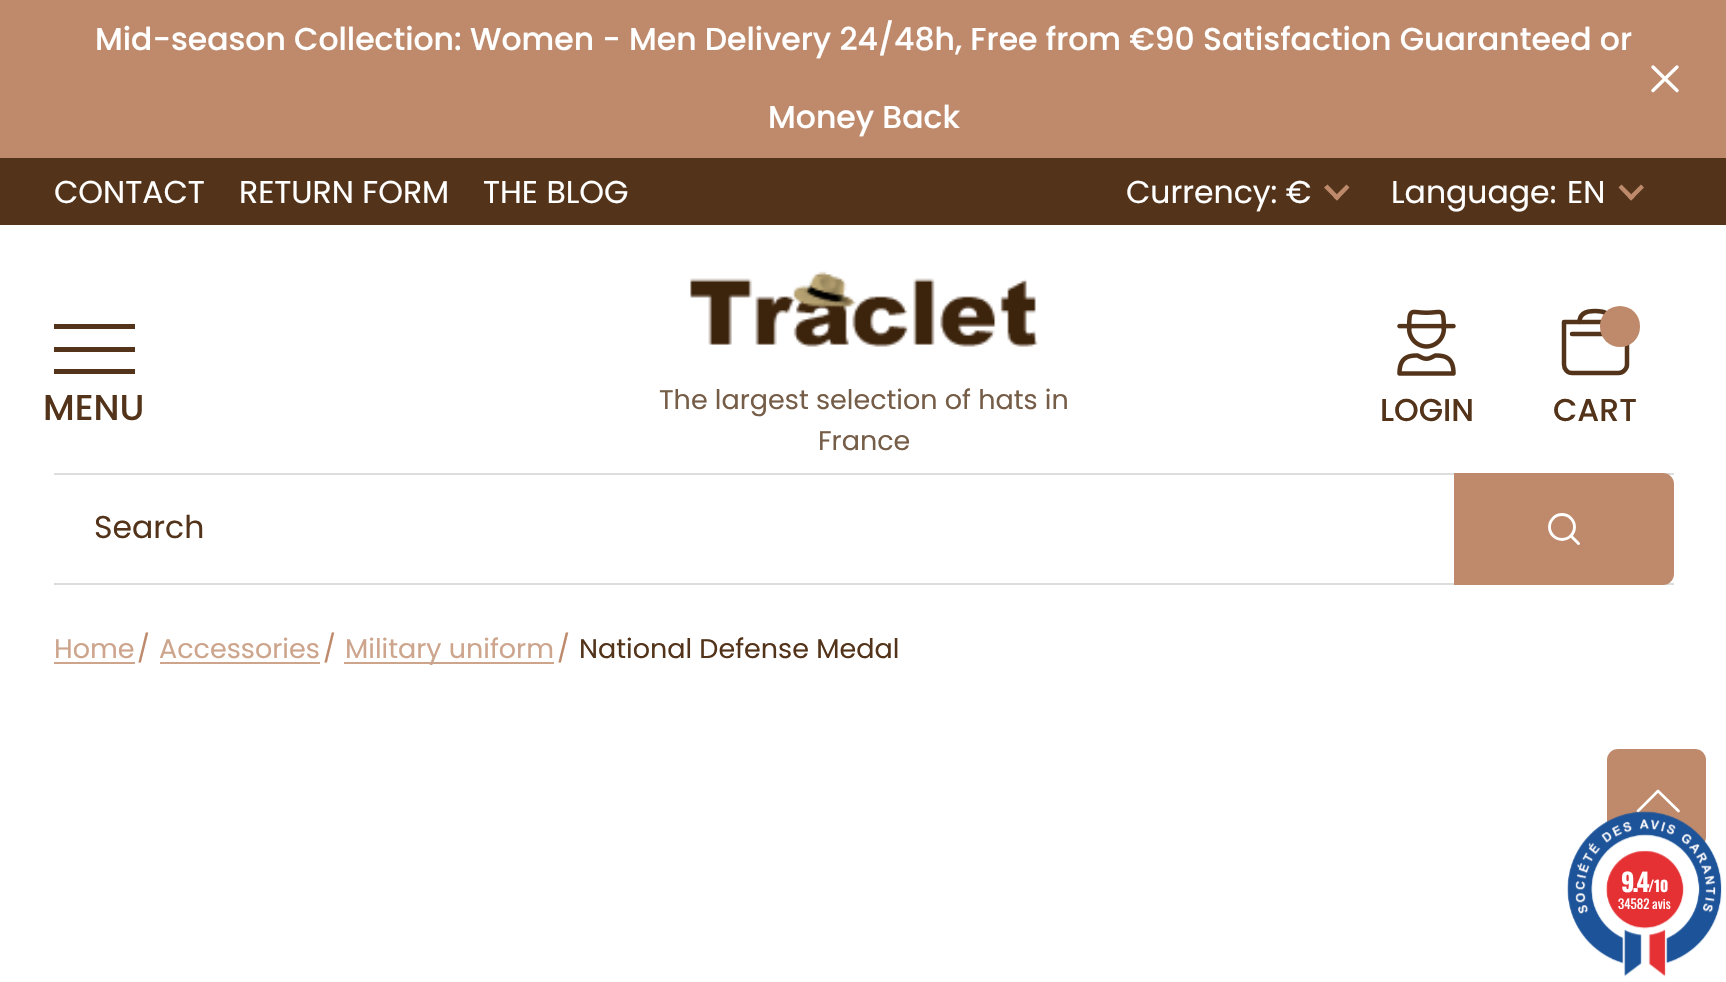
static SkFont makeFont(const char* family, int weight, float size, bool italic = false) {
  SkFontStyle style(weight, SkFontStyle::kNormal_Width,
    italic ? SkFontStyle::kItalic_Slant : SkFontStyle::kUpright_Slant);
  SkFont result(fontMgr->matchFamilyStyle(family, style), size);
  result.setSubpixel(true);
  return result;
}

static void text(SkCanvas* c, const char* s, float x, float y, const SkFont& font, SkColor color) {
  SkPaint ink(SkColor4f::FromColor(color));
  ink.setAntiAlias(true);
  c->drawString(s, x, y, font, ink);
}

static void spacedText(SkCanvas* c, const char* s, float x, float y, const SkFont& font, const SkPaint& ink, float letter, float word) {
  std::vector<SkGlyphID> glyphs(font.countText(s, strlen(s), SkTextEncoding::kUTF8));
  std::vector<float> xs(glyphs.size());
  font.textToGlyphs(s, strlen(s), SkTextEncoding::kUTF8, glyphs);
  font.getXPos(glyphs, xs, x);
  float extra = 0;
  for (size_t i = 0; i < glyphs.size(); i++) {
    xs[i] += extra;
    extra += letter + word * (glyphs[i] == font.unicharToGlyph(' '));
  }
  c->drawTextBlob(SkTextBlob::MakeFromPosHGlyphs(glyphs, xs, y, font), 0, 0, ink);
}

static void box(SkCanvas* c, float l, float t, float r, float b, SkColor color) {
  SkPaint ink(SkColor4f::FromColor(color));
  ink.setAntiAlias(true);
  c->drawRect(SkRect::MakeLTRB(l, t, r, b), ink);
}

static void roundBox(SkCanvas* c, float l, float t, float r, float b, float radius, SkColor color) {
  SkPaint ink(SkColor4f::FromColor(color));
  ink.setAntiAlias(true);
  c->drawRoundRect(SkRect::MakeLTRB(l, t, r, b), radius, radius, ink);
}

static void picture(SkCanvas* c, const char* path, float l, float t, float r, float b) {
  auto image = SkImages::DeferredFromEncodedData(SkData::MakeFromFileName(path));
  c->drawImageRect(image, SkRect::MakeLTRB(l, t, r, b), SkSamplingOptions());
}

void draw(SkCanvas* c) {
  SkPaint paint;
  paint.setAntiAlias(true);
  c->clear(0xffffffff);
  box(c, 0, 0, 1726, 158, 0xffbe8a6b);
  SkFont face1 = makeFont("Poppins", 500, 31.5f);
  text(c, "Mid-season Collection: Women - Men Delivery 24/48h, Free from €90 Satisfaction Guaranteed or", 95, 50, face1, 0xffffffff);
  text(c, "Money Back", 768, 128, face1, 0xffffffff);
  paint.setStyle(SkPaint::kStroke_Style);
  paint.setStrokeWidth(3.4f);
  paint.setStrokeCap(SkPaint::kRound_Cap);
  paint.setStrokeJoin(SkPaint::kRound_Join);
  paint.setColor(0xffffffff);
  c->drawPath(SkPathBuilder().moveTo(1677, 67).lineTo(1653, 90.5f).moveTo(1677, 90.5f).lineTo(1653, 67).detach(), paint);
  box(c, 0, 158, 1726, 225, 0xff53341a);
  SkFont face2 = makeFont("Poppins", 400, 31.5f);
  text(c, "CONTACT", 54, 203, face2, 0xffffffff);
  text(c, "RETURN FORM", 239, 203, face2, 0xffffffff);
  text(c, "THE BLOG", 483, 203, face2, 0xffffffff);
  text(c, "Currency: €", 1126, 203, face2, 0xffffffff);
  paint.setStyle(SkPaint::kFill_Style);
  paint.setColor(0xffbe8a6b);
  c->drawPath(SkPathBuilder().moveTo(1346.5f, 184.5f).lineTo(1349.5f, 187.5f).lineTo(1337, 200.5f).lineTo(1333.5f, 197.5f).close().detach(), paint);
  c->drawPath(SkPathBuilder().moveTo(1327.5f, 184.5f).lineTo(1340, 197.5f).lineTo(1337, 200.5f).lineTo(1324, 187.5f).close().detach(), paint);
  text(c, "Language:", 1391, 203, face2, 0xffffffff);
  text(c, "EN", 1567, 203, face2, 0xffffffff);
  c->drawPath(SkPathBuilder().moveTo(1641, 184.5f).lineTo(1644, 187.5f).lineTo(1631, 200.5f).lineTo(1628, 197.5f).close().detach(), paint);
  c->drawPath(SkPathBuilder().moveTo(1621.5f, 184.5f).lineTo(1634.5f, 197.5f).lineTo(1631, 200.5f).lineTo(1618.5f, 187.5f).close().detach(), paint);
  box(c, 54, 324, 135, 329, 0xff53341a);
  box(c, 54, 347, 135, 352, 0xff53341a);
  box(c, 54, 369, 135, 374, 0xff53341a);
  SkFont face3 = makeFont("Poppins", 500, 36);
  text(c, "MENU", 43, 420, face3, 0xff53341a);
  picture(c, "img_01.png", 690, 271, 1038, 347);
  SkFont face4 = makeFont("Poppins", 400, 27);
  text(c, "The largest selection of hats in", 659, 409, face4, 0xff755d48);
  text(c, "France", 818, 450, face4, 0xff755d48);
  picture(c, "img_02.png", 1397, 309, 1456, 376);
  text(c, "LOGIN", 1380, 421, face1, 0xff53341a);
  paint.setStyle(SkPaint::kStroke_Style);
  paint.setStrokeWidth(4.5f);
  paint.setColor(0xff53341a);
  c->drawPath(SkPathBuilder().moveTo(1579.5f, 322).cubicTo(1579.5f, 313.5f, 1586.5f, 311, 1595, 311).cubicTo(1604, 311, 1611, 313.5f, 1611, 322).detach(), paint);
  c->drawPath(SkPathBuilder().moveTo(1627, 322).lineTo(1564, 322).lineTo(1564, 364.5f).cubicTo(1564, 369, 1567.5f, 373, 1572, 373).lineTo(1618.5f, 373).cubicTo(1623, 373, 1627, 369, 1627, 364.5f).close().detach(), paint);
  c->drawPath(SkPathBuilder().moveTo(1572, 334).lineTo(1618.5f, 334).detach(), paint);
  roundBox(c, 1600, 306, 1640, 347, 20, 0xffbe8a6b);
  text(c, "CART", 1553, 421, face1, 0xff53341a);
  box(c, 54, 473, 1674, 475, 0xffdddddd);
  box(c, 54, 583, 1674, 585, 0xffdddddd);
  text(c, "Search", 94, 538, face2, 0xff53341a);
  paint.setStyle(SkPaint::kFill_Style);
  paint.setColor(0xffbe8a6b);
  c->drawPath(SkPathBuilder().moveTo(1455, 474).lineTo(1663, 474).cubicTo(1668.5f, 474, 1673, 478.5f, 1673, 484).lineTo(1673, 574).cubicTo(1673, 579.5f, 1668.5f, 584, 1663, 584).lineTo(1455, 584).close().detach(), paint);
  paint.setStyle(SkPaint::kStroke_Style);
  paint.setStrokeWidth(2);
  paint.setStrokeCap(SkPaint::kButt_Cap);
  paint.setStrokeJoin(SkPaint::kMiter_Join);
  c->drawPath(SkPathBuilder().moveTo(1455, 474).lineTo(1663, 474).cubicTo(1668.5f, 474, 1673, 478.5f, 1673, 484).lineTo(1673, 574).cubicTo(1673, 579.5f, 1668.5f, 584, 1663, 584).lineTo(1455, 584).close().detach(), paint);
  paint.setStrokeWidth(2.9f);
  paint.setColor(0xffffffff);
  c->drawCircle(1562, 527, 12.5f, paint);
  paint.setStrokeCap(SkPaint::kRound_Cap);
  paint.setStrokeJoin(SkPaint::kRound_Join);
  c->drawPath(SkPathBuilder().moveTo(1571, 536).lineTo(1578.5f, 543.5f).detach(), paint);
  text(c, "Home", 54, 658, face4, 0xffcda58d);
  box(c, 54, 662, 135, 664, 0xffcda58d);
  text(c, "/", 137, 658, face4, 0xffbe8a6b);
  text(c, "Accessories", 159, 658, face4, 0xffcda58d);
  box(c, 160, 662, 320, 664, 0xffcda58d);
  text(c, "/", 323, 658, face4, 0xffbe8a6b);
  box(c, 344, 662, 554, 664, 0xffcda58d);
  text(c, "Military uniform", 345, 658, face4, 0xffcda58d);
  text(c, "/", 557, 658, face4, 0xffbe8a6b);
  text(c, "National Defense Medal", 579, 658, face4, 0xff53341a);
  roundBox(c, 1607, 749, 1706, 848, 11, 0xffbe8a6b);
  paint.setStrokeWidth(2.7f);
  c->drawPath(SkPathBuilder().moveTo(1678.5f, 811).lineTo(1658, 791).lineTo(1638, 811).detach(), paint);
  picture(c, "img_03.png", 1567, 811, 1722, 977);
  SkFont face5 = makeFont("Oswald", 700, 25);
  paint.setStyle(SkPaint::kFill_Style);
  spacedText(c, "9.4", 1621, 892, face5, paint, -2, 0);
  SkFont face6 = makeFont("Oswald", 700, 15);
  text(c, "/10", 1648, 892, face6, 0xffffffff);
  SkFont face7 = makeFont("Oswald", 400, 13);
  text(c, "34582 avis", 1618, 909, face7, 0xffffffff);
}
